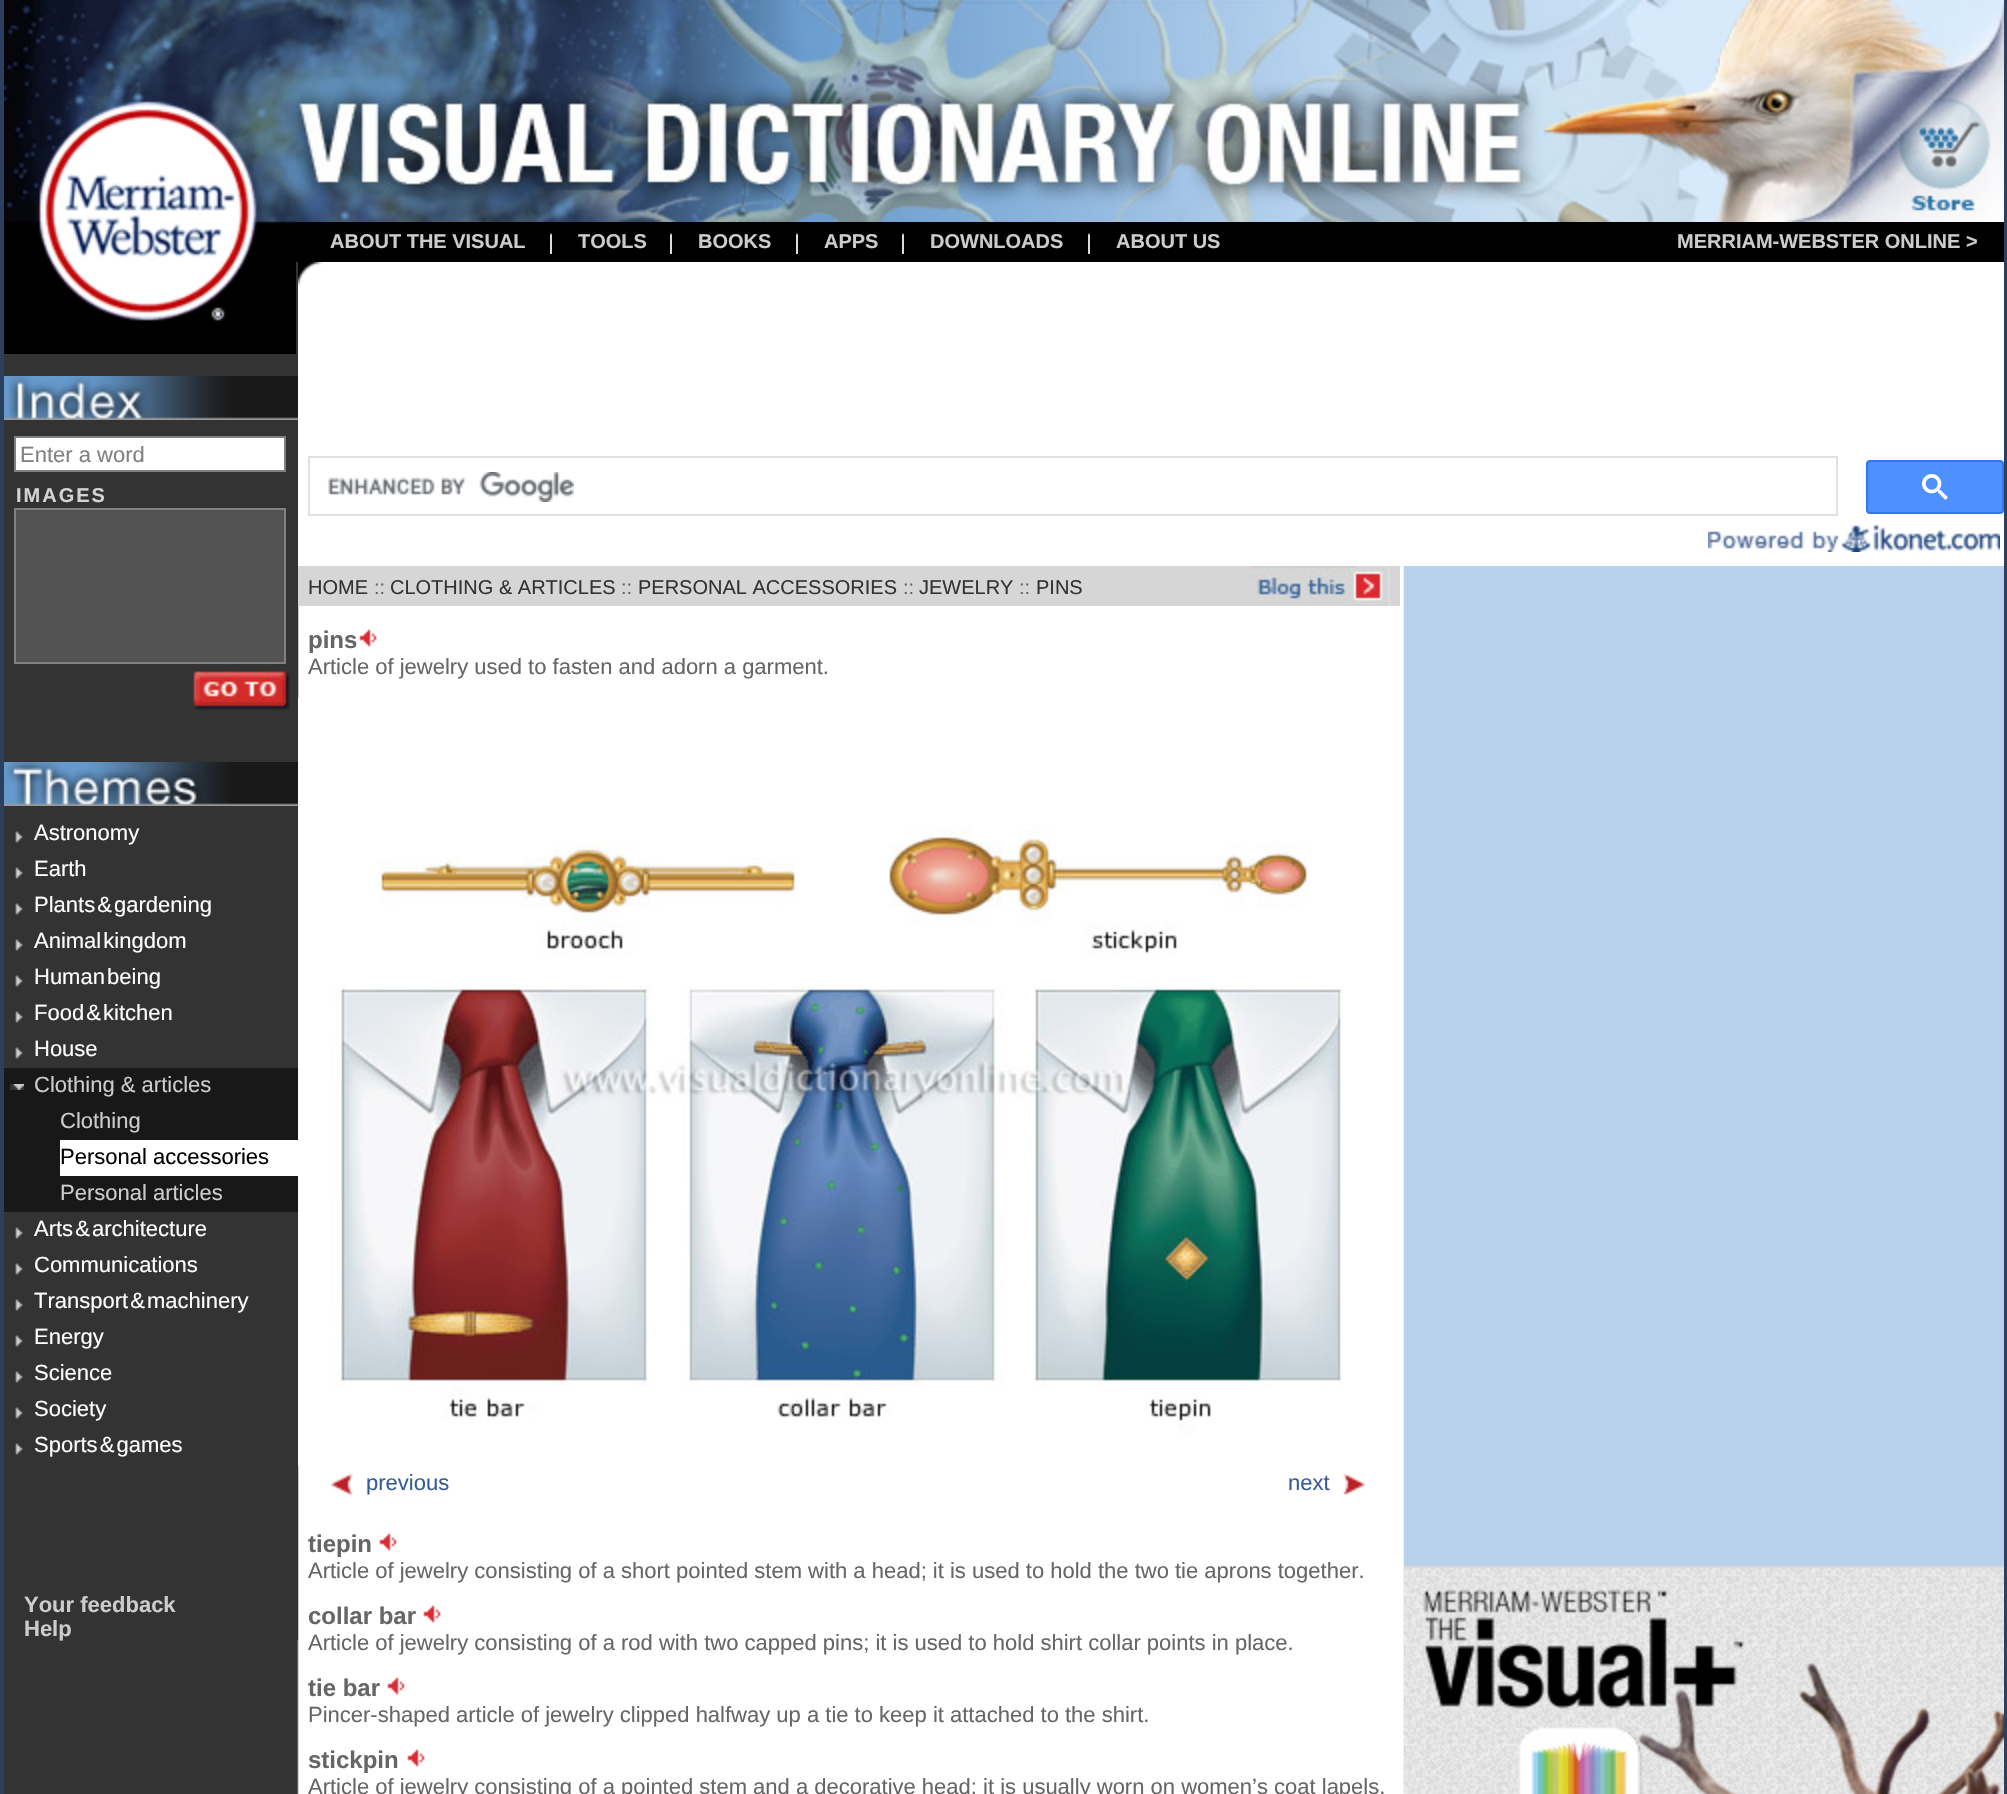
static SkFont makeFont(const char* family, int weight, float size, bool italic = false) {
  SkFontStyle style(weight, SkFontStyle::kNormal_Width,
    italic ? SkFontStyle::kItalic_Slant : SkFontStyle::kUpright_Slant);
  SkFont result(fontMgr->matchFamilyStyle(family, style), size);
  result.setSubpixel(true);
  return result;
}

static void text(SkCanvas* c, const char* s, float x, float y, const SkFont& font, SkColor color) {
  SkPaint ink(SkColor4f::FromColor(color));
  ink.setAntiAlias(true);
  c->drawString(s, x, y, font, ink);
}

static void spacedText(SkCanvas* c, const char* s, float x, float y, const SkFont& font, const SkPaint& ink, float letter, float word) {
  std::vector<SkGlyphID> glyphs(font.countText(s, strlen(s), SkTextEncoding::kUTF8));
  std::vector<float> xs(glyphs.size());
  font.textToGlyphs(s, strlen(s), SkTextEncoding::kUTF8, glyphs);
  font.getXPos(glyphs, xs, x);
  float extra = 0;
  for (size_t i = 0; i < glyphs.size(); i++) {
    xs[i] += extra;
    extra += letter + word * (glyphs[i] == font.unicharToGlyph(' '));
  }
  c->drawTextBlob(SkTextBlob::MakeFromPosHGlyphs(glyphs, xs, y, font), 0, 0, ink);
}

static void box(SkCanvas* c, float l, float t, float r, float b, SkColor color) {
  SkPaint ink(SkColor4f::FromColor(color));
  ink.setAntiAlias(true);
  c->drawRect(SkRect::MakeLTRB(l, t, r, b), ink);
}

static void picture(SkCanvas* c, const char* path, float l, float t, float r, float b) {
  auto image = SkImages::DeferredFromEncodedData(SkData::MakeFromFileName(path));
  c->drawImageRect(image, SkRect::MakeLTRB(l, t, r, b), SkSamplingOptions());
}

void draw(SkCanvas* c) {
  SkPaint paint;
  paint.setAntiAlias(true);
  c->clear(0xff2c3f5f);
  picture(c, "img_01.png", 4, 566, 1404, 1794);
  box(c, 4, 262, 298, 1640, 0xff333333);
  picture(c, "img_02.png", 4, 0, 296, 354);
  box(c, 296, 222, 2004, 262, 0xff000000);
  picture(c, "img_03.png", 296, 0, 2004, 222);
  picture(c, "img_04.png", 550, 233, 552, 254);
  SkFont face1 = makeFont("Liberation Sans", 700, 20);
  text(c, "ABOUT THE VISUAL", 330, 248, face1, 0xffcccccc);
  picture(c, "img_04.png", 670, 233, 672, 254);
  text(c, "TOOLS", 578, 248, face1, 0xffcccccc);
  picture(c, "img_04.png", 796, 233, 798, 254);
  text(c, "BOOKS", 698, 248, face1, 0xffcccccc);
  picture(c, "img_04.png", 902, 233, 904, 254);
  text(c, "APPS", 824, 248, face1, 0xffcccccc);
  picture(c, "img_04.png", 1088, 233, 1090, 254);
  text(c, "DOWNLOADS", 930, 248, face1, 0xffcccccc);
  text(c, "ABOUT US", 1116, 248, face1, 0xffcccccc);
  text(c, "MERRIAM-WEBSTER ONLINE >", 1677, 248, face1, 0xffcccccc);
  picture(c, "img_05.png", 4, 376, 298, 420);
  paint.setColor(0xffffffff);
  c->drawRect(SkRect::MakeLTRB(15, 437, 285, 471), paint);
  paint.setStyle(SkPaint::kStroke_Style);
  paint.setStrokeWidth(2);
  paint.setColor(0xff808080);
  c->drawRect(SkRect::MakeLTRB(15, 437, 285, 471), paint);
  SkFont face2 = makeFont("Liberation Sans", 400, 22);
  text(c, "Enter a word", 20, 462, face2, 0xff808080);
  paint.setStyle(SkPaint::kFill_Style);
  paint.setColor(0xffd3d3d3);
  spacedText(c, "IMAGES", 16, 502, face1, paint, 2, 0);
  paint.setColor(0xff535353);
  c->drawRect(SkRect::MakeLTRB(15, 509, 285, 663), paint);
  paint.setStyle(SkPaint::kStroke_Style);
  paint.setColor(0xff808080);
  c->drawRect(SkRect::MakeLTRB(15, 509, 285, 663), paint);
  picture(c, "img_06.png", 192, 670, 290, 710);
  picture(c, "img_07.png", 4, 762, 298, 806);
  picture(c, "img_08.png", 15, 831, 23, 843);
  text(c, "Astronomy", 34, 840, face2, 0xffffffff);
  picture(c, "img_08.png", 15, 867, 23, 879);
  text(c, "Earth", 34, 876, face2, 0xffffffff);
  picture(c, "img_08.png", 15, 903, 23, 915);
  paint.setStyle(SkPaint::kFill_Style);
  paint.setColor(0xffffffff);
  spacedText(c, "Plants & gardening", 34, 912, face2, paint, 0, -4);
  picture(c, "img_08.png", 15, 939, 23, 951);
  spacedText(c, "Animal kingdom", 34, 948, face2, paint, 0, -4);
  picture(c, "img_08.png", 15, 975, 23, 987);
  spacedText(c, "Human being", 34, 984, face2, paint, 0, -4);
  picture(c, "img_08.png", 15, 1011, 23, 1023);
  spacedText(c, "Food & kitchen", 34, 1020, face2, paint, 0, -4);
  picture(c, "img_08.png", 15, 1047, 23, 1059);
  text(c, "House", 34, 1056, face2, 0xffffffff);
  box(c, 4, 1068, 298, 1212, 0xff181818);
  picture(c, "img_09.png", 10, 1084, 24, 1090);
  text(c, "Clothing & articles", 34, 1092, face2, 0xffcccccc);
  text(c, "Clothing", 60, 1128, face2, 0xffcccccc);
  box(c, 60, 1140, 298, 1176, 0xffffffff);
  text(c, "Personal accessories", 60, 1164, face2, 0xff000000);
  text(c, "Personal articles", 60, 1200, face2, 0xffcccccc);
  picture(c, "img_08.png", 15, 1227, 23, 1239);
  spacedText(c, "Arts & architecture", 34, 1236, face2, paint, 0, -4);
  picture(c, "img_08.png", 15, 1263, 23, 1275);
  text(c, "Communications", 34, 1272, face2, 0xffffffff);
  picture(c, "img_08.png", 15, 1299, 23, 1311);
  spacedText(c, "Transport & machinery", 34, 1308, face2, paint, 0, -4);
  picture(c, "img_08.png", 15, 1335, 23, 1347);
  text(c, "Energy", 34, 1344, face2, 0xffffffff);
  picture(c, "img_08.png", 15, 1371, 23, 1383);
  text(c, "Science", 34, 1380, face2, 0xffffffff);
  picture(c, "img_08.png", 15, 1407, 23, 1419);
  text(c, "Society", 34, 1416, face2, 0xffffffff);
  picture(c, "img_08.png", 15, 1443, 23, 1455);
  spacedText(c, "Sports & games", 34, 1452, face2, paint, 0, -4);
  SkFont face3 = makeFont("Liberation Sans", 700, 22);
  text(c, "Your feedback", 24, 1612, face3, 0xffcccccc);
  text(c, "Help", 24, 1636, face3, 0xffcccccc);
  box(c, 298, 262, 2004, 566, 0xffffffff);
  picture(c, "img_10.png", 298, 262, 323, 287);
  paint.setStyle(SkPaint::kStroke_Style);
  paint.setColor(0xffdfe1e5);
  c->drawRect(SkRect::MakeLTRB(309, 457, 1837, 515), paint);
  picture(c, "img_11.png", 328, 472, 574, 502);
  paint.setStyle(SkPaint::kFill_Style);
  paint.setColor(0xff4d90fe);
  c->drawRoundRect(SkRect::MakeLTRB(1867, 461, 2003, 513), 3, 3, paint);
  paint.setStyle(SkPaint::kStroke_Style);
  paint.setColor(0xff3079ed);
  c->drawRoundRect(SkRect::MakeLTRB(1867, 461, 2003, 513), 3, 3, paint);
  picture(c, "img_12.png", 1922, 474, 1948, 500);
  picture(c, "img_13.png", 1708, 524, 2000, 552);
  box(c, 298, 566, 1400, 606, 0xffd6d6d6);
  SkFont face4 = makeFont("Liberation Sans", 400, 20);
  text(c, "HOME", 308, 594, face4, 0xff333333);
  text(c, "::", 374, 594, face4, 0xff666666);
  text(c, "CLOTHING & ARTICLES", 390, 594, face4, 0xff333333);
  text(c, "::", 621, 594, face4, 0xff666666);
  text(c, "PERSONAL ACCESSORIES", 638, 594, face4, 0xff333333);
  text(c, "::", 903, 594, face4, 0xff666666);
  text(c, "JEWELRY", 919, 594, face4, 0xff333333);
  text(c, "::", 1019, 594, face4, 0xff666666);
  text(c, "PINS", 1036, 594, face4, 0xff333333);
  picture(c, "img_14.png", 1250, 566, 1390, 606);
  SkFont face5 = makeFont("Liberation Sans", 700, 24);
  text(c, "pins", 308, 648, face5, 0xff666666);
  picture(c, "img_15.png", 359, 629, 377, 647);
  text(c, "Article of jewelry used to fasten and adorn a garment.", 308, 674, face2, 0xff666666);
  picture(c, "img_16.png", 298, 698, 1344, 1466);
  picture(c, "img_17.png", 330, 1473, 353, 1496);
  text(c, "previous", 366, 1490, face2, 0xff355c94);
  text(c, "next", 1288, 1490, face2, 0xff355c94);
  picture(c, "img_18.png", 1343, 1473, 1366, 1495);
  text(c, "tiepin", 308, 1552, face5, 0xff666666);
  picture(c, "img_15.png", 379, 1533, 397, 1551);
  text(c, "Article of jewelry consisting of a short pointed stem with a head; it is used to hold the two tie aprons together.", 308, 1578, face2, 0xff666666);
  text(c, "collar bar", 308, 1624, face5, 0xff666666);
  picture(c, "img_15.png", 423, 1605, 441, 1623);
  text(c, "Article of jewelry consisting of a rod with two capped pins; it is used to hold shirt collar points in place.", 308, 1650, face2, 0xff666666);
  text(c, "tie bar", 308, 1696, face5, 0xff666666);
  picture(c, "img_15.png", 387, 1677, 405, 1695);
  text(c, "Pincer-shaped article of jewelry clipped halfway up a tie to keep it attached to the shirt.", 308, 1722, face2, 0xff666666);
  text(c, "stickpin", 308, 1768, face5, 0xff666666);
  picture(c, "img_15.png", 407, 1749, 425, 1767);
  text(c, "Article of jewelry consisting of a pointed stem and a decorative head; it is usually worn on women’s coat lapels.", 308, 1794, face2, 0xff666666);
  box(c, 1404, 566, 2004, 1566, 0xffbad1ed);
  picture(c, "img_19.png", 1404, 1566, 2004, 1794);
}
